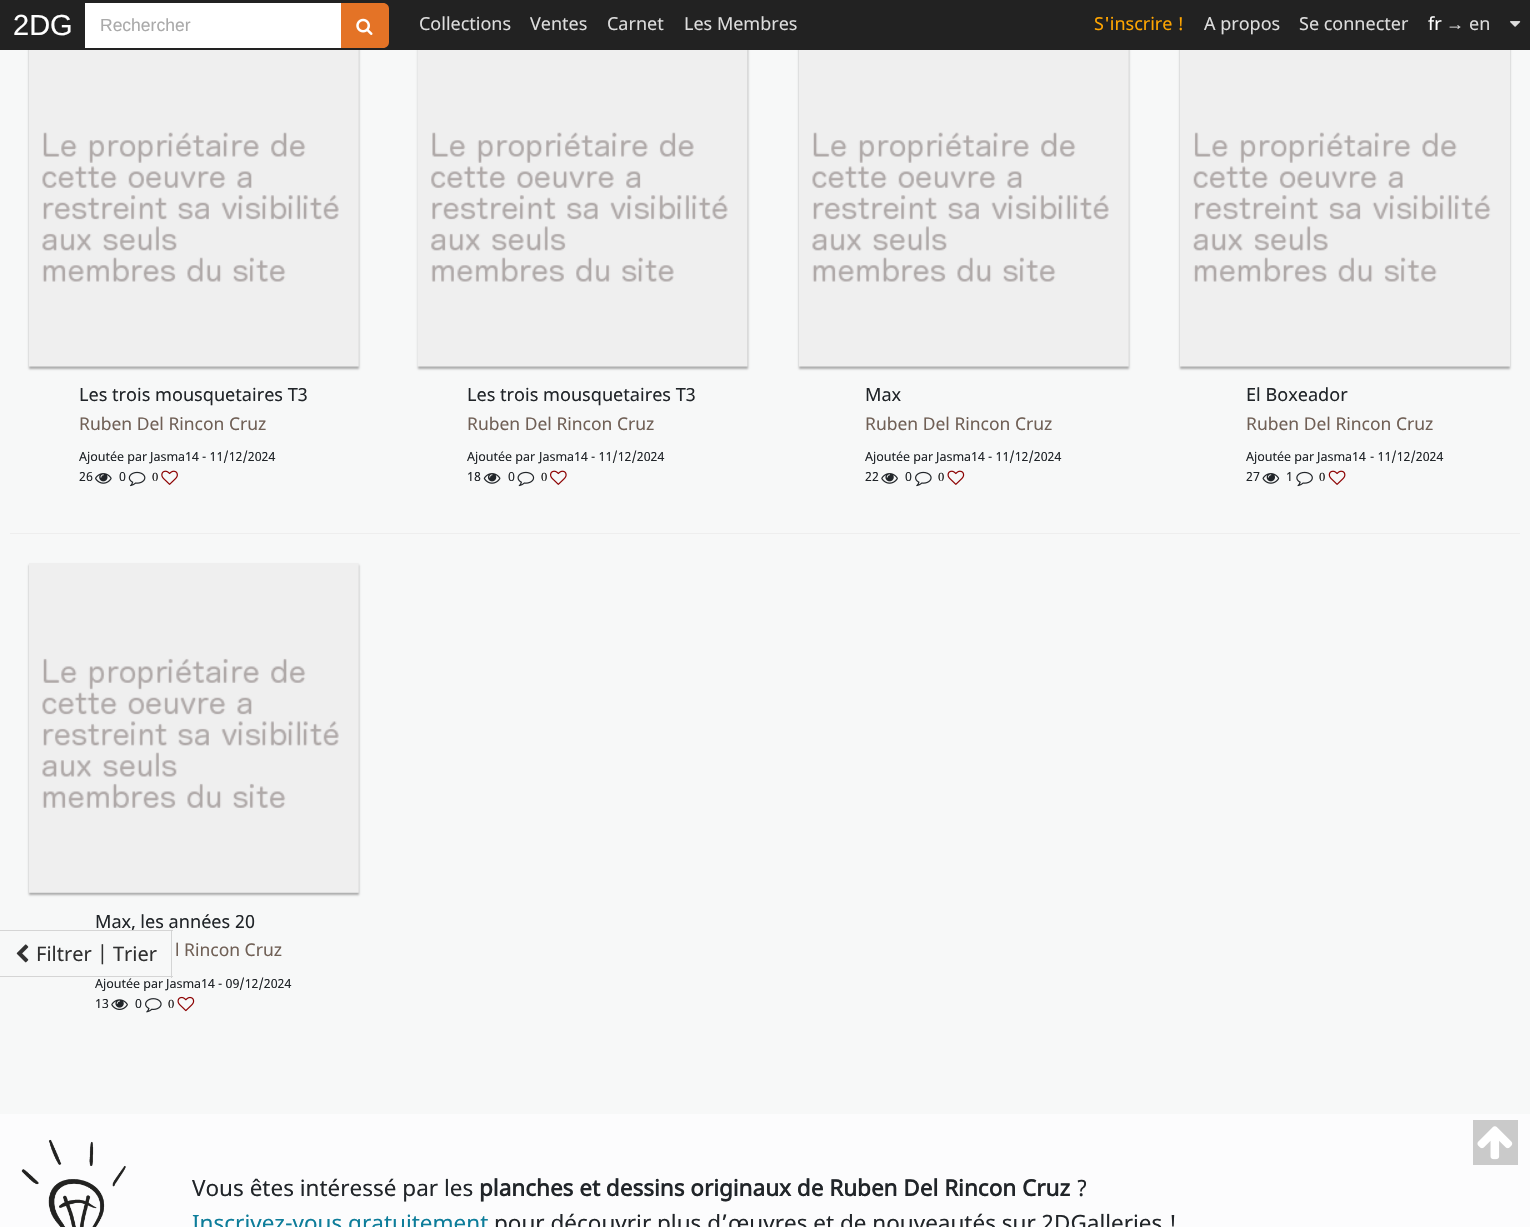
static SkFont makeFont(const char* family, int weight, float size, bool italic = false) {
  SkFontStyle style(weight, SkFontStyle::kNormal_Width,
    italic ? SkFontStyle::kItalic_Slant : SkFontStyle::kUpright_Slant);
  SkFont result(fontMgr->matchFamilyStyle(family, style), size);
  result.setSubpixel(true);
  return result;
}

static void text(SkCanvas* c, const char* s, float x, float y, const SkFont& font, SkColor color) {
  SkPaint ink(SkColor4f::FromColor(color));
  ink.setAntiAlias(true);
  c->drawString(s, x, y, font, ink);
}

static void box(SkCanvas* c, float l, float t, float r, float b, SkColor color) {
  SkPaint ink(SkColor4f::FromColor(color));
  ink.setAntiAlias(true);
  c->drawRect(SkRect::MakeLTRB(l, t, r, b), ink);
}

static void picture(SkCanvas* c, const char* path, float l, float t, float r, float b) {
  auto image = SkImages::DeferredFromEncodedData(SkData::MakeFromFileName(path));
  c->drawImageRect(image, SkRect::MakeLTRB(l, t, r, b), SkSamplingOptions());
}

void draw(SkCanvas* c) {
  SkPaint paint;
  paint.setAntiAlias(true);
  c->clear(0xfff7f8f8);
  paint.setColor(0x4d000000);
  paint.setMaskFilter(SkMaskFilter::MakeBlur(kNormal_SkBlurStyle, 1));
  c->drawRect(SkRect::MakeLTRB(29, 39, 359, 369), paint);
  paint.setMaskFilter(nullptr);
  paint.setMaskFilter(SkMaskFilter::MakeBlur(kNormal_SkBlurStyle, 1));
  c->drawRect(SkRect::MakeLTRB(418, 39, 748, 369), paint);
  paint.setMaskFilter(nullptr);
  paint.setMaskFilter(SkMaskFilter::MakeBlur(kNormal_SkBlurStyle, 1));
  c->drawRect(SkRect::MakeLTRB(799, 39, 1129, 369), paint);
  paint.setMaskFilter(nullptr);
  paint.setMaskFilter(SkMaskFilter::MakeBlur(kNormal_SkBlurStyle, 1));
  c->drawRect(SkRect::MakeLTRB(1180, 39, 1510, 369), paint);
  paint.setMaskFilter(nullptr);
  box(c, 0, 0, 1530, 50, 0xff222222);
  SkFont face1 = makeFont("Liberation Sans", 400, 29);
  text(c, "2DG", 13, 35, face1, 0xffffffff);
  box(c, 85, 3, 341, 48, 0xffffffff);
  SkFont face2 = makeFont("Liberation Sans", 400, 17.5f);
  text(c, "Rechercher", 100, 31, face2, 0xffaaaaaa);
  paint.setColor(0xffe47326);
  c->drawPath(SkPathBuilder().moveTo(341, 3).lineTo(383, 3).cubicTo(386.5f, 3, 389, 5.5f, 389, 9).lineTo(389, 42).cubicTo(389, 45.5f, 386.5f, 48, 383, 48).lineTo(341, 48).close().detach(), paint);
  picture(c, "img_01.png", 356, 18, 373, 35);
  SkFont face3 = makeFont("Noto Sans", 400, 18);
  text(c, "Collections", 419, 30, face3, 0xffdddddd);
  text(c, "Ventes", 530, 30, face3, 0xffdddddd);
  text(c, "Carnet", 607, 30, face3, 0xffdddddd);
  text(c, "Les Membres", 684, 30, face3, 0xffdddddd);
  text(c, "S'inscrire !", 1094, 30, face3, 0xffffa500);
  text(c, "A propos", 1204, 30, face3, 0xffdddddd);
  text(c, "Se connecter", 1299, 30, face3, 0xffdddddd);
  text(c, "fr", 1428, 30, face3, 0xffffffff);
  SkFont face4 = makeFont("Liberation Sans", 400, 18);
  text(c, "→", 1446, 30, face4, 0xffdddddd);
  text(c, "en", 1469, 30, face3, 0xffdddddd);
  picture(c, "img_02.png", 1510, 21, 1521, 27);
  picture(c, "img_03.png", 29, 50, 359, 367);
  SkFont face5 = makeFont("Noto Sans", 400, 18.1f);
  text(c, "Les trois mousquetaires T3", 79, 401, face5, 0xff212529);
  SkFont face6 = makeFont("Noto Sans", 400, 17.5f);
  text(c, "Ruben Del Rincon Cruz", 79, 430, face6, 0xff706056);
  SkFont face7 = makeFont("Noto Sans", 400, 12.5f);
  text(c, "Ajoutée par", 79, 461, face7, 0xff212529);
  text(c, "Jasma14", 150, 461, face7, 0xff212529);
  text(c, "- 11/12/2024", 202, 461, face7, 0xff212529);
  text(c, "26", 79, 481, face7, 0xff212529);
  picture(c, "img_04.png", 95, 473, 112, 484);
  text(c, "0", 119, 481, face7, 0xff212529);
  picture(c, "img_05.png", 128, 471, 146, 487);
  SkFont face8 = makeFont("Liberation Serif", 400, 12.5f);
  text(c, "0", 152, 481, face8, 0xff111111);
  picture(c, "img_06.png", 161, 470, 178, 485);
  picture(c, "img_07.png", 417, 50, 748, 367);
  text(c, "Les trois mousquetaires T3", 467, 401, face5, 0xff212529);
  text(c, "Ruben Del Rincon Cruz", 467, 430, face6, 0xff706056);
  text(c, "Ajoutée par", 467, 461, face7, 0xff212529);
  text(c, "Jasma14", 539, 461, face7, 0xff212529);
  text(c, "- 11/12/2024", 591, 461, face7, 0xff212529);
  text(c, "18", 467, 481, face7, 0xff212529);
  picture(c, "img_08.png", 483, 473, 501, 484);
  text(c, "0", 508, 481, face7, 0xff212529);
  picture(c, "img_09.png", 517, 471, 535, 487);
  text(c, "0", 541, 481, face8, 0xff111111);
  picture(c, "img_10.png", 550, 470, 567, 485);
  picture(c, "img_11.png", 799, 50, 1129, 367);
  text(c, "Max", 865, 401, face5, 0xff212529);
  text(c, "Ruben Del Rincon Cruz", 865, 430, face6, 0xff706056);
  text(c, "Ajoutée par", 865, 461, face7, 0xff212529);
  text(c, "Jasma14", 936, 461, face7, 0xff212529);
  text(c, "- 11/12/2024", 988, 461, face7, 0xff212529);
  text(c, "22", 865, 481, face7, 0xff212529);
  picture(c, "img_12.png", 881, 473, 898, 484);
  text(c, "0", 905, 481, face7, 0xff212529);
  picture(c, "img_13.png", 915, 471, 932, 487);
  text(c, "0", 938, 481, face8, 0xff111111);
  picture(c, "img_14.png", 947, 470, 965, 485);
  picture(c, "img_15.png", 1180, 50, 1510, 367);
  text(c, "El Boxeador", 1246, 401, face5, 0xff212529);
  text(c, "Ruben Del Rincon Cruz", 1246, 430, face6, 0xff706056);
  text(c, "Ajoutée par", 1246, 461, face7, 0xff212529);
  text(c, "Jasma14", 1317, 461, face7, 0xff212529);
  text(c, "- 11/12/2024", 1370, 461, face7, 0xff212529);
  text(c, "27", 1246, 481, face7, 0xff212529);
  picture(c, "img_16.png", 1262, 473, 1280, 484);
  text(c, "1", 1286, 481, face7, 0xff212529);
  picture(c, "img_17.png", 1296, 471, 1313, 487);
  text(c, "0", 1319, 481, face8, 0xff111111);
  picture(c, "img_18.png", 1328, 470, 1346, 485);
  box(c, 10, 533, 1520, 534, 0xffeeeeee);
  paint.setColor(0x4d000000);
  paint.setMaskFilter(SkMaskFilter::MakeBlur(kNormal_SkBlurStyle, 1));
  c->drawRect(SkRect::MakeLTRB(29, 565, 359, 895), paint);
  paint.setMaskFilter(nullptr);
  picture(c, "img_19.png", 29, 563, 359, 893);
  text(c, "Max, les années 20", 95, 928, face5, 0xff212529);
  text(c, "l Rincon Cruz", 175, 956, face6, 0xff706056);
  text(c, "Ajoutée par", 95, 988, face7, 0xff212529);
  text(c, "Jasma14", 166, 988, face7, 0xff212529);
  text(c, "- 09/12/2024", 218, 988, face7, 0xff212529);
  text(c, "13", 95, 1008, face7, 0xff212529);
  picture(c, "img_20.png", 111, 999, 128, 1010);
  text(c, "0", 135, 1008, face7, 0xff212529);
  picture(c, "img_21.png", 145, 998, 162, 1013);
  text(c, "0", 168, 1008, face8, 0xff111111);
  picture(c, "img_22.png", 177, 996, 195, 1012);
  box(c, 131, 930, 133, 931, 0xccf8f9fa);
  box(c, 0, 930, 173, 931, 0xcccccccc);
  box(c, 171, 930, 172, 978, 0xcccccccc);
  box(c, 0, 976, 173, 977, 0xffd5d5d5);
  picture(c, "img_23.png", 16, 944, 29, 963);
  SkFont face9 = makeFont("Noto Sans", 400, 20);
  text(c, "Filtrer | Trier", 36, 961, face9, 0xff313131);
  box(c, 0, 1114, 1530, 1227, 0xfffcfcfd);
  picture(c, "img_24.png", 21, 1139, 126, 1227);
  SkFont face10 = makeFont("Noto Sans", 400, 22.5f);
  text(c, "Vous êtes intéressé par les", 192, 1196, face10, 0xff212529);
  SkFont face11 = makeFont("Noto Sans", 700, 22.5f);
  text(c, "planches et dessins originaux de Ruben Del Rincon Cruz", 479, 1196, face11, 0xff212529);
  text(c, "?", 1076, 1196, face10, 0xff212529);
  text(c, "Inscrivez-vous gratuitement", 192, 1231, face10, 0xff0d7d9a);
  text(c, "pour découvrir plus d’œuvres et de nouveautés sur 2DGalleries !", 494, 1231, face10, 0xff212529);
  box(c, 1473, 1120, 1518, 1165, 0xffcacaca);
  picture(c, "img_25.png", 1477, 1126, 1513, 1160);
}
